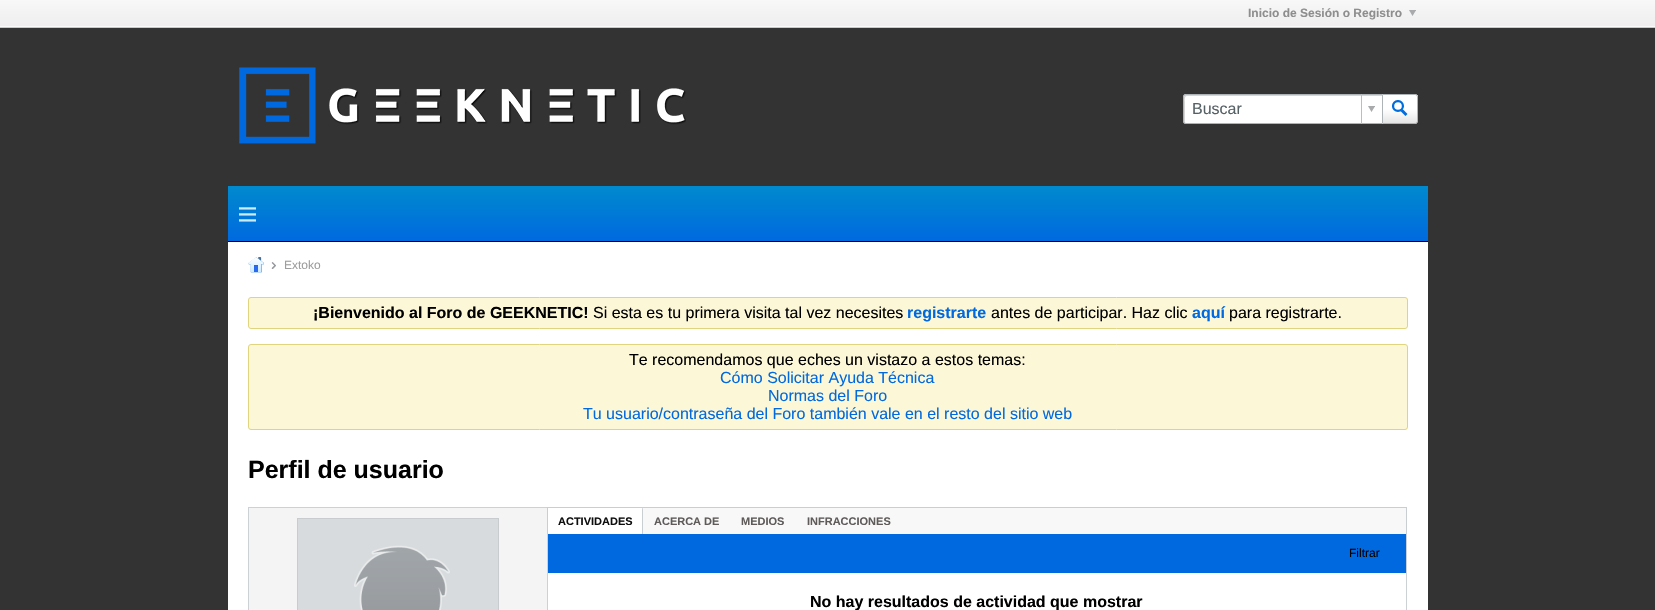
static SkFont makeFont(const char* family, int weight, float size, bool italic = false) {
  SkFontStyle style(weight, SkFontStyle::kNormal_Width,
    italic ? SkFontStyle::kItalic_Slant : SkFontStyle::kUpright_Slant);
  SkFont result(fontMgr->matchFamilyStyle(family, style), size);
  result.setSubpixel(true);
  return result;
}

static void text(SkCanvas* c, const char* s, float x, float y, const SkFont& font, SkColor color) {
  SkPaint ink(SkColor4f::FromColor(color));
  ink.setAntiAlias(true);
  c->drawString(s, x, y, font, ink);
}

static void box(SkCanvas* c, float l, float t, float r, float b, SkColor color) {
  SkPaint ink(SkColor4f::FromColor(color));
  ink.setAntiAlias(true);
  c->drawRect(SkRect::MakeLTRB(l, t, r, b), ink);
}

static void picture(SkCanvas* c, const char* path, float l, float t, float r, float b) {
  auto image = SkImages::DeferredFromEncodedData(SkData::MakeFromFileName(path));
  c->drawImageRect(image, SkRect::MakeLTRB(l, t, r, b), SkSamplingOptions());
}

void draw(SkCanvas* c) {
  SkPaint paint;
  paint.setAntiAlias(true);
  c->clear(0xff333333);
  {
    const SkColor colors[] = {0xfff8f8f8, 0xffefedee};
    const float stops[] = {0, 1};
    const SkPoint ends[] = {{828, 0}, {828, 28}};
    paint.setShader(SkGradientShader::MakeLinear(ends, colors, stops, 2, SkTileMode::kClamp));
    paint.setAlpha(255);
  }
  c->drawRect(SkRect::MakeLTRB(0, 0, 1655, 26), paint);
  SkFont face1 = makeFont("Liberation Sans", 700, 12);
  text(c, "Inicio de Sesión o Registro", 1248, 17, face1, 0xff8e8e8e);
  picture(c, "img_01.png", 1409, 10, 1416, 16);
  box(c, 0, 26, 1655, 27, 0xfffafafa);
  box(c, 0, 27, 1655, 28, 0xffc7c8c9);
  picture(c, "img_02.png", 239, 67, 686, 144);
  paint.setShader(nullptr);
  paint.setColor(0xffffffff);
  c->drawPath(SkPathBuilder().moveTo(1186, 94).lineTo(1382, 94).lineTo(1382, 124).lineTo(1186, 124).cubicTo(1184.5f, 124, 1183, 122.5f, 1183, 121).lineTo(1183, 97).cubicTo(1183, 95.5f, 1184.5f, 94, 1186, 94).close().detach(), paint);
  paint.setColor(0xffd5d5d5);
  c->drawPath(SkPathBuilder().moveTo(1187, 96).lineTo(1382, 96).lineTo(1382, 95).lineTo(1185, 95).lineTo(1184, 97).lineTo(1184, 109).cubicTo(1184, 111, 1183, 122, 1185, 123).lineTo(1185, 102).cubicTo(1185, 101, 1184, 96, 1187, 96).close().detach(), paint);
  paint.setColor(0xffaeb3b6);
  c->drawPath(SkPathBuilder(SkPathFillType::kEvenOdd).moveTo(1186, 94).lineTo(1382, 94).lineTo(1382, 124).lineTo(1186, 124).cubicTo(1184, 124, 1183, 123, 1183, 121).lineTo(1183, 97).cubicTo(1183, 95, 1184, 94, 1186, 94).close().moveTo(1186, 95).lineTo(1382, 95).lineTo(1382, 123).lineTo(1186, 123).cubicTo(1185, 123, 1184, 122, 1184, 121).lineTo(1184, 97).cubicTo(1184, 96, 1185, 95, 1186, 95).close().detach(), paint);
  SkFont face2 = makeFont("Liberation Sans", 400, 16);
  text(c, "Buscar", 1192, 114, face2, 0xff556065);
  box(c, 1361, 94, 1362, 124, 0xffbdbdbd);
  picture(c, "img_03.png", 1368, 106, 1375, 112);
  paint.setColor(0xffffffff);
  c->drawPath(SkPathBuilder().moveTo(1382, 94).lineTo(1415, 94).cubicTo(1416.5f, 94, 1418, 95.5f, 1418, 97).lineTo(1418, 121).cubicTo(1418, 122.5f, 1416.5f, 124, 1415, 124).lineTo(1382, 124).close().detach(), paint);
  {
    const SkColor colors[] = {0x1a000000, 0x00000000, 0x00ffffff, 0xb3ffffff};
    const float stops[] = {0, 0.5f, 0.5f, 1};
    const SkPoint ends[] = {{1400, 123}, {1400, 95}};
    paint.setShader(SkGradientShader::MakeLinear(ends, colors, stops, 4, SkTileMode::kClamp));
    paint.setAlpha(255);
  }
  c->drawRect(SkRect::MakeLTRB(1383, 95, 1418, 123), paint);
  paint.setStyle(SkPaint::kStroke_Style);
  paint.setStrokeWidth(1);
  paint.setShader(nullptr);
  paint.setColor(0xffaeb3b6);
  c->drawPath(SkPathBuilder().moveTo(1382.5f, 94.5f).lineTo(1415, 94.5f).cubicTo(1416.5f, 94.5f, 1417.5f, 95.5f, 1417.5f, 97).lineTo(1417.5f, 121).cubicTo(1417.5f, 122.5f, 1416.5f, 123.5f, 1415, 123.5f).lineTo(1382.5f, 123.5f).close().detach(), paint);
  picture(c, "img_04.png", 1392, 100, 1408, 116);
  paint.setStyle(SkPaint::kFill_Style);
  {
    const SkColor colors[] = {0xff008acd, 0xff0069e0};
    const float stops[] = {0, 1};
    const SkPoint ends[] = {{828, 186}, {828, 241}};
    paint.setShader(SkGradientShader::MakeLinear(ends, colors, stops, 2, SkTileMode::kClamp));
    paint.setAlpha(255);
  }
  c->drawRect(SkRect::MakeLTRB(228, 186, 1428, 241), paint);
  box(c, 228, 241, 1428, 242, 0xff000000);
  picture(c, "img_05.png", 239, 207, 256, 222);
  box(c, 228, 242, 1428, 610, 0xffffffff);
  picture(c, "img_06.png", 248, 257, 264, 273);
  picture(c, "img_07.png", 271, 262, 276, 269);
  SkFont face3 = makeFont("Liberation Sans", 400, 12);
  text(c, "Extoko", 284, 269, face3, 0xff9e9d9d);
  paint.setShader(nullptr);
  paint.setColor(0xfffcf7d7);
  c->drawRoundRect(SkRect::MakeLTRB(248.5f, 297.5f, 1407.5f, 328.5f), 2.5f, 2.5f, paint);
  paint.setStyle(SkPaint::kStroke_Style);
  paint.setColor(0xffe1d47e);
  c->drawRoundRect(SkRect::MakeLTRB(248.5f, 297.5f, 1407.5f, 328.5f), 2.5f, 2.5f, paint);
  SkFont face4 = makeFont("Liberation Sans", 700, 16);
  text(c, "¡Bienvenido al Foro de GEEKNETIC!", 313, 318, face4, 0xff000000);
  text(c, "Si esta es tu primera visita tal vez necesites", 593, 318, face2, 0xff000000);
  text(c, "registrarte", 907, 318, face4, 0xff0069e0);
  text(c, "antes de participar. Haz clic", 991, 318, face2, 0xff000000);
  text(c, "aquí", 1192, 318, face4, 0xff0069e0);
  text(c, "para registrarte.", 1229, 318, face2, 0xff000000);
  paint.setStyle(SkPaint::kFill_Style);
  paint.setColor(0xfffcf7d7);
  c->drawRoundRect(SkRect::MakeLTRB(248.5f, 344.5f, 1407.5f, 429.5f), 2.5f, 2.5f, paint);
  paint.setStyle(SkPaint::kStroke_Style);
  paint.setColor(0xffe1d47e);
  c->drawRoundRect(SkRect::MakeLTRB(248.5f, 344.5f, 1407.5f, 429.5f), 2.5f, 2.5f, paint);
  text(c, "Te recomendamos que eches un vistazo a estos temas:", 629, 365, face2, 0xff000000);
  text(c, "Cómo Solicitar Ayuda Técnica", 720, 383, face2, 0xff0069e0);
  text(c, "Normas del Foro", 768, 401, face2, 0xff0069e0);
  text(c, "Tu usuario/contraseña del Foro también vale en el resto del sitio web", 583, 419, face2, 0xff0069e0);
  SkFont face5 = makeFont("Liberation Sans", 700, 25);
  text(c, "Perfil de usuario", 248, 478, face5, 0xff000000);
  paint.setColor(0xffccd1d5);
  c->drawRect(SkRect::MakeLTRB(248.5f, 507.5f, 547.5f, 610.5f), paint);
  box(c, 249, 508, 547, 610, 0xfff4f4f4);
  paint.setColor(0xffc8ccce);
  c->drawRect(SkRect::MakeLTRB(297.5f, 518.5f, 498.5f, 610.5f), paint);
  picture(c, "img_08.png", 298, 519, 498, 610);
  paint.setColor(0xffccd1d5);
  c->drawRect(SkRect::MakeLTRB(547.5f, 507.5f, 1406.5f, 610.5f), paint);
  box(c, 642, 508, 1406, 534, 0xfff8f8f8);
  box(c, 547, 507, 1407, 508, 0xffc9ced2);
  box(c, 1406, 507, 1407, 534, 0xffc9ced2);
  box(c, 547, 507, 548, 510, 0xffc9ced2);
  paint.setStyle(SkPaint::kFill_Style);
  paint.setColor(0xffc9ced2);
  c->drawPath(SkPathBuilder(SkPathFillType::kEvenOdd).moveTo(550, 507).lineTo(640, 507).cubicTo(642, 507, 643, 508, 643, 510).lineTo(643, 534).lineTo(547, 534).lineTo(547, 510).cubicTo(547, 508, 548, 507, 550, 507).close().moveTo(550, 508).lineTo(640, 508).cubicTo(641, 508, 642, 509, 642, 510).lineTo(642, 534).lineTo(548, 534).lineTo(548, 510).cubicTo(548, 509, 549, 508, 550, 508).close().detach(), paint);
  box(c, 548, 508, 642, 510, 0xffffffff);
  SkFont face6 = makeFont("Liberation Sans", 700, 11);
  text(c, "ACTIVIDADES", 558, 525, face6, 0xff0f0e0e);
  text(c, "ACERCA DE", 654, 525, face6, 0xff5e5b5a);
  text(c, "MEDIOS", 741, 525, face6, 0xff5e5b5a);
  text(c, "INFRACCIONES", 807, 525, face6, 0xff5e5b5a);
  box(c, 548, 534, 1406, 573, 0xff0069e0);
  text(c, "Filtrar", 1349, 557, face3, 0xff000000);
  text(c, "No hay resultados de actividad que mostrar", 810, 607, face4, 0xff000000);
}
